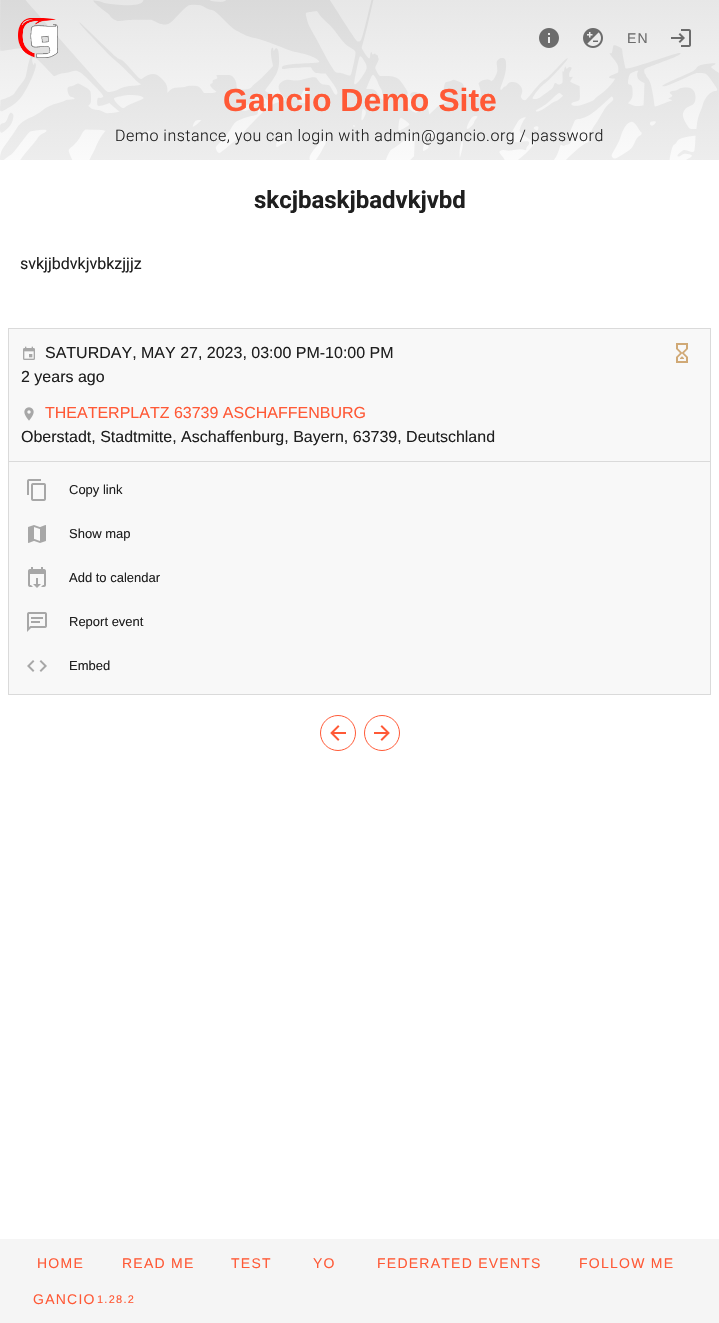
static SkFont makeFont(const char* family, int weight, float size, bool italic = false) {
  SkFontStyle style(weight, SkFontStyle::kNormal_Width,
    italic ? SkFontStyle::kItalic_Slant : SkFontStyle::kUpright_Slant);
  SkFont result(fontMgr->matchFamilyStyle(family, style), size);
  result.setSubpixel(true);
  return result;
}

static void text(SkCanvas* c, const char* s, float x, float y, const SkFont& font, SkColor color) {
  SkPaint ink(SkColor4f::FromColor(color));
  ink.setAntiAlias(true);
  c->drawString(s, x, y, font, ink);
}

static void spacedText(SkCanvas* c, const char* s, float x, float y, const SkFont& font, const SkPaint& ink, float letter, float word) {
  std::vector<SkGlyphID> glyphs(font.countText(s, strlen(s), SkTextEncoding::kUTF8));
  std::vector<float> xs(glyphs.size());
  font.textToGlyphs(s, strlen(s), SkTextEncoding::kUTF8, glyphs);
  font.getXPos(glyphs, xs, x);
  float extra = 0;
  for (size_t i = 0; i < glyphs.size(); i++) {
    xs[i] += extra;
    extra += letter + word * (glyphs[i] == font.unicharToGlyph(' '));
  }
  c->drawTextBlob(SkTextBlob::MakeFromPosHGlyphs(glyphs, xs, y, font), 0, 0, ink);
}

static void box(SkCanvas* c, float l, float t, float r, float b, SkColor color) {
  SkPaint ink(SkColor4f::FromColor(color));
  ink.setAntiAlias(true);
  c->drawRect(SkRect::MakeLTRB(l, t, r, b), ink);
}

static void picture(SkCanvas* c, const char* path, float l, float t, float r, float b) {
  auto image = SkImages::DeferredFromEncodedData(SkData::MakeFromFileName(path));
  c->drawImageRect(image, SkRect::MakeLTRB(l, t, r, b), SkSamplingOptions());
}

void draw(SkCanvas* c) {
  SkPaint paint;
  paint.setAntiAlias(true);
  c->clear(0xffffffff);
  picture(c, "img_01.png", 0, 0, 719, 160);
  picture(c, "img_02.png", 18, 18, 58, 58);
  picture(c, "img_03.png", 539, 28, 559, 48);
  picture(c, "img_04.png", 583, 28, 603, 48);
  SkFont face1 = makeFont("Liberation Sans", 400, 14);
  paint.setColor(0xff6c6c6c);
  spacedText(c, "EN", 627, 43, face1, paint, 1.25f, 0);
  picture(c, "img_05.png", 671, 29, 691, 47);
  SkFont face2 = makeFont("Liberation Sans", 700, 32);
  text(c, "Gancio Demo Site", 223, 111, face2, 0xffff5936);
  SkFont face3 = makeFont("Roboto", 300, 16);
  paint.setColor(0xff1f1f1f);
  spacedText(c, "Demo instance, you can login with admin@gancio.org / password", 115, 141, face3, paint, 0.5f, 0);
  SkFont face4 = makeFont("Roboto", 700, 24);
  text(c, "skcjbaskjbadvkjvbd", 254, 208, face4, 0xff1f1f1f);
  SkFont face5 = makeFont("Roboto", 400, 16);
  text(c, "svkjjbdvkjvbkzjjjz", 20, 269, face5, 0xff1f1f1f);
  paint.setColor(0xfff8f8f8);
  c->drawRect(SkRect::MakeLTRB(8.5f, 328.5f, 710.5f, 694.5f), paint);
  paint.setStyle(SkPaint::kStroke_Style);
  paint.setStrokeWidth(1);
  paint.setColor(0xffdadada);
  c->drawRect(SkRect::MakeLTRB(8.5f, 328.5f, 710.5f, 694.5f), paint);
  picture(c, "img_06.png", 23, 346, 35, 360);
  SkFont face6 = makeFont("Liberation Sans", 400, 16);
  text(c, "SATURDAY, MAY 27, 2023, 03:00 PM-10:00 PM", 45, 358, face6, 0xff1f1f1f);
  picture(c, "img_07.png", 676, 343, 688, 363);
  text(c, "2 years ago", 21, 382, face6, 0xff1f1f1f);
  picture(c, "img_08.png", 24, 407, 34, 421);
  text(c, "THEATERPLATZ 63739 ASCHAFFENBURG", 45, 418, face6, 0xffff5936);
  text(c, "Oberstadt, Stadtmitte, Aschaffenburg, Bayern, 63739, Deutschland", 21, 442, face6, 0xff1f1f1f);
  box(c, 9, 461, 710, 462, 0xffdadada);
  picture(c, "img_09.png", 27, 479, 46, 501);
  SkFont face7 = makeFont("Liberation Sans", 400, 13);
  text(c, "Copy link", 69, 494, face7, 0xff1f1f1f);
  picture(c, "img_10.png", 28, 525, 46, 543);
  text(c, "Show map", 69, 538, face7, 0xff1f1f1f);
  picture(c, "img_11.png", 28, 567, 46, 588);
  text(c, "Add to calendar", 69, 582, face7, 0xff1f1f1f);
  picture(c, "img_12.png", 27, 612, 47, 632);
  text(c, "Report event", 69, 626, face7, 0xff1f1f1f);
  picture(c, "img_13.png", 27, 660, 47, 672);
  text(c, "Embed", 69, 670, face7, 0xff1f1f1f);
  paint.setColor(0xffff5936);
  c->drawCircle(338, 733, 17.5f, paint);
  picture(c, "img_14.png", 330, 725, 346, 741);
  c->drawCircle(382, 733, 17.5f, paint);
  picture(c, "img_15.png", 374, 725, 390, 741);
  box(c, 0, 1239, 719, 1323, 0xfff5f5f5);
  paint.setStyle(SkPaint::kFill_Style);
  spacedText(c, "HOME", 37, 1268, face1, paint, 1.25f, 0);
  spacedText(c, "READ ME", 122, 1268, face1, paint, 1.25f, 0);
  spacedText(c, "TEST", 231, 1268, face1, paint, 1.25f, 0);
  spacedText(c, "YO", 313, 1268, face1, paint, 1.25f, 0);
  spacedText(c, "FEDERATED EVENTS", 377, 1268, face1, paint, 1.25f, 0);
  spacedText(c, "FOLLOW ME", 579, 1268, face1, paint, 1.25f, 0);
  spacedText(c, "GANCIO", 33, 1304, face1, paint, 1.25f, 0);
  SkFont face8 = makeFont("Liberation Sans", 400, 11);
  spacedText(c, "1.28.2", 97, 1303, face8, paint, 1.25f, 0);
}
